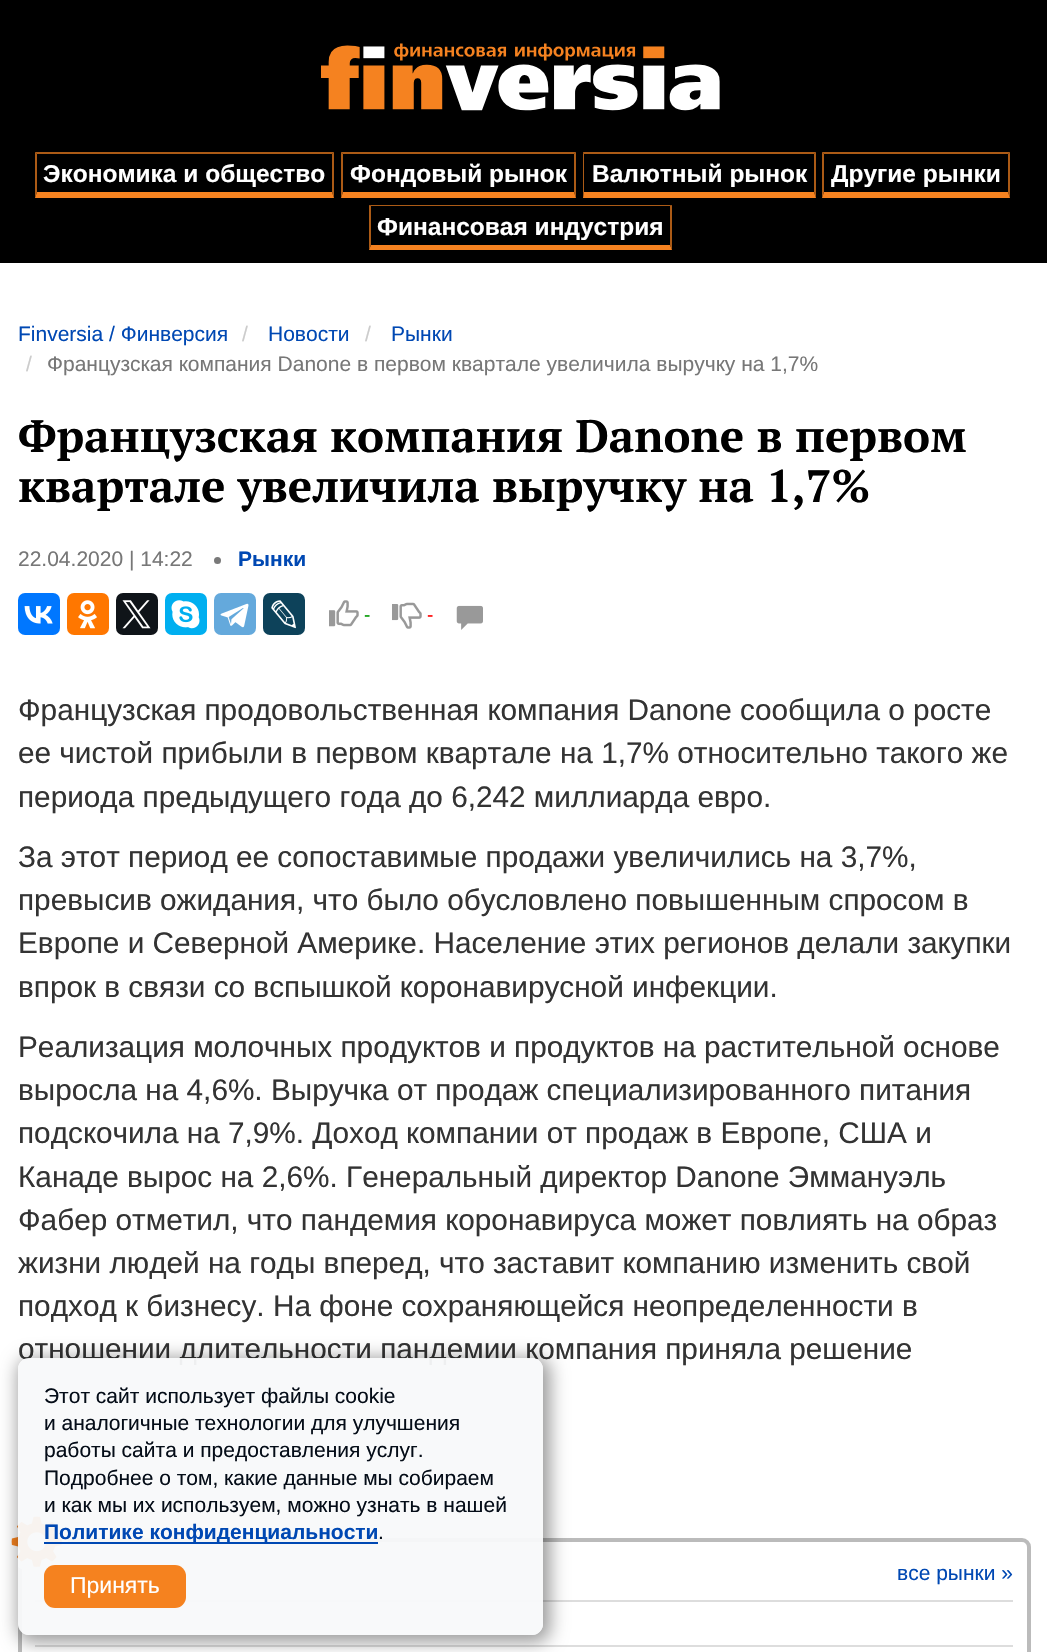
static SkFont makeFont(const char* family, int weight, float size, bool italic = false) {
  SkFontStyle style(weight, SkFontStyle::kNormal_Width,
    italic ? SkFontStyle::kItalic_Slant : SkFontStyle::kUpright_Slant);
  SkFont result(fontMgr->matchFamilyStyle(family, style), size);
  result.setSubpixel(true);
  return result;
}

static void text(SkCanvas* c, const char* s, float x, float y, const SkFont& font, SkColor color) {
  SkPaint ink(SkColor4f::FromColor(color));
  ink.setAntiAlias(true);
  c->drawString(s, x, y, font, ink);
}

static void box(SkCanvas* c, float l, float t, float r, float b, SkColor color) {
  SkPaint ink(SkColor4f::FromColor(color));
  ink.setAntiAlias(true);
  c->drawRect(SkRect::MakeLTRB(l, t, r, b), ink);
}

static void roundBox(SkCanvas* c, float l, float t, float r, float b, float radius, SkColor color) {
  SkPaint ink(SkColor4f::FromColor(color));
  ink.setAntiAlias(true);
  c->drawRoundRect(SkRect::MakeLTRB(l, t, r, b), radius, radius, ink);
}

static void picture(SkCanvas* c, const char* path, float l, float t, float r, float b) {
  auto image = SkImages::DeferredFromEncodedData(SkData::MakeFromFileName(path));
  c->drawImageRect(image, SkRect::MakeLTRB(l, t, r, b), SkSamplingOptions());
}

void draw(SkCanvas* c) {
  SkPaint paint;
  paint.setAntiAlias(true);
  c->clear(0xffffffff);
  box(c, 0, 0, 1047, 263, 0xff000000);
  picture(c, "img_01.png", 321, 43, 720, 111);
  paint.setColor(0xffac5b16);
  c->drawPath(SkPathBuilder().moveTo(35, 152).lineTo(334, 152).lineTo(332, 154).lineTo(37, 154).close().detach(), paint);
  paint.setColor(0xb3f58220);
  c->drawPath(SkPathBuilder().moveTo(334, 152).lineTo(334, 198).lineTo(332, 192).lineTo(332, 154).close().detach(), paint);
  paint.setColor(0xfff58220);
  c->drawPath(SkPathBuilder().moveTo(334, 198).lineTo(35, 198).lineTo(37, 192).lineTo(332, 192).close().detach(), paint);
  paint.setColor(0xb3f58220);
  c->drawPath(SkPathBuilder().moveTo(35, 198).lineTo(35, 152).lineTo(37, 154).lineTo(37, 192).close().detach(), paint);
  SkFont face1 = makeFont("Liberation Sans", 700, 24.5f);
  text(c, "Экономика и общество", 43, 182, face1, 0xffffffff);
  paint.setColor(0xffac5b16);
  c->drawPath(SkPathBuilder().moveTo(341, 152).lineTo(576, 152).lineTo(574, 154).lineTo(343, 154).close().detach(), paint);
  paint.setColor(0xb3f58220);
  c->drawPath(SkPathBuilder().moveTo(576, 152).lineTo(576, 198).lineTo(574, 192).lineTo(574, 154).close().detach(), paint);
  paint.setColor(0xfff58220);
  c->drawPath(SkPathBuilder().moveTo(576, 198).lineTo(341, 198).lineTo(343, 192).lineTo(574, 192).close().detach(), paint);
  paint.setColor(0xb3f58220);
  c->drawPath(SkPathBuilder().moveTo(341, 198).lineTo(341, 152).lineTo(343, 154).lineTo(343, 192).close().detach(), paint);
  text(c, "Фондовый рынок", 350, 182, face1, 0xffffffff);
  paint.setColor(0xffac5b16);
  c->drawPath(SkPathBuilder().moveTo(583, 152).lineTo(816, 152).lineTo(814, 154).lineTo(584, 154).close().detach(), paint);
  paint.setColor(0xb3f58220);
  c->drawPath(SkPathBuilder().moveTo(816, 152).lineTo(816, 198).lineTo(814, 192).lineTo(814, 154).close().detach(), paint);
  paint.setColor(0xfff58220);
  c->drawPath(SkPathBuilder().moveTo(816, 198).lineTo(583, 198).lineTo(584, 192).lineTo(814, 192).close().detach(), paint);
  paint.setColor(0xb3f58220);
  c->drawPath(SkPathBuilder().moveTo(583, 198).lineTo(583, 152).lineTo(584, 154).lineTo(584, 192).close().detach(), paint);
  text(c, "Валютный рынок", 592, 182, face1, 0xffffffff);
  paint.setColor(0xffac5b16);
  c->drawPath(SkPathBuilder().moveTo(822, 152).lineTo(1010, 152).lineTo(1008, 154).lineTo(824, 154).close().detach(), paint);
  paint.setColor(0xb3f58220);
  c->drawPath(SkPathBuilder().moveTo(1010, 152).lineTo(1010, 198).lineTo(1008, 192).lineTo(1008, 154).close().detach(), paint);
  paint.setColor(0xfff58220);
  c->drawPath(SkPathBuilder().moveTo(1010, 198).lineTo(822, 198).lineTo(824, 192).lineTo(1008, 192).close().detach(), paint);
  paint.setColor(0xb3f58220);
  c->drawPath(SkPathBuilder().moveTo(822, 198).lineTo(822, 152).lineTo(824, 154).lineTo(824, 192).close().detach(), paint);
  text(c, "Другие рынки", 831, 182, face1, 0xffffffff);
  paint.setColor(0xffac5b16);
  c->drawPath(SkPathBuilder().moveTo(369, 205).lineTo(672, 205).lineTo(670, 206).lineTo(371, 206).close().detach(), paint);
  paint.setColor(0xb3f58220);
  c->drawPath(SkPathBuilder().moveTo(672, 205).lineTo(672, 250).lineTo(670, 245).lineTo(670, 206).close().detach(), paint);
  paint.setColor(0xfff58220);
  c->drawPath(SkPathBuilder().moveTo(672, 250).lineTo(369, 250).lineTo(371, 245).lineTo(670, 245).close().detach(), paint);
  paint.setColor(0xb3f58220);
  c->drawPath(SkPathBuilder().moveTo(369, 250).lineTo(369, 205).lineTo(371, 206).lineTo(371, 245).close().detach(), paint);
  text(c, "Финансовая индустрия", 377, 235, face1, 0xffffffff);
  SkFont face2 = makeFont("Liberation Sans", 400, 21);
  text(c, "Finversia / Финверсия", 18, 341, face2, 0xff0048b3);
  text(c, "/", 242, 341, face2, 0xffcccccc);
  text(c, "Новости", 268, 341, face2, 0xff0048b3);
  text(c, "/", 365, 341, face2, 0xffcccccc);
  text(c, "Рынки", 391, 341, face2, 0xff0048b3);
  text(c, "/", 26, 371, face2, 0xffcccccc);
  text(c, "Французская компания Danone в первом квартале увеличила выручку на 1,7%", 47, 371, face2, 0xff777777);
  SkFont face3 = makeFont("PT Serif", 700, 45.5f);
  text(c, "Французская компания Danone в первом", 18, 452, face3, 0xff000000);
  text(c, "квартале увеличила выручку на 1,7%", 18, 502, face3, 0xff000000);
  text(c, "22.04.2020 | 14:22", 18, 566, face2, 0xff777777);
  paint.setColor(0xff797979);
  c->drawCircle(217.5f, 560.5f, 3.5f, paint);
  SkFont face4 = makeFont("Liberation Sans", 700, 21);
  text(c, "Рынки", 238, 566, face4, 0xff0048b3);
  roundBox(c, 18, 593, 60, 635, 7, 0xff0077ff);
  picture(c, "img_02.png", 24, 606, 53, 624);
  roundBox(c, 67, 593, 109, 635, 7, 0xffff7700);
  picture(c, "img_03.png", 78, 600, 97, 629);
  roundBox(c, 116, 593, 158, 635, 7, 0xff0f1419);
  picture(c, "img_04.png", 122, 600, 151, 629);
  roundBox(c, 165, 593, 207, 635, 7, 0xff00aff0);
  picture(c, "img_05.png", 171, 600, 200, 629);
  roundBox(c, 214, 593, 256, 635, 7, 0xff64a9dc);
  picture(c, "img_06.png", 220, 603, 249, 628);
  roundBox(c, 263, 593, 305, 635, 7, 0xff0d425a);
  picture(c, "img_07.png", 271, 600, 296, 629);
  picture(c, "img_08.png", 329, 600, 359, 627);
  SkFont face5 = makeFont("Liberation Sans", 400, 19);
  text(c, "-", 364, 621, face5, 0xff009900);
  picture(c, "img_09.png", 392, 602, 422, 629);
  text(c, "-", 427, 621, face5, 0xffff0000);
  picture(c, "img_10.png", 456, 605, 483, 630);
  SkFont face6 = makeFont("Liberation Sans", 400, 29.75f);
  text(c, "Французская продовольственная компания Danone сообщила о росте", 18, 720, face6, 0xff333333);
  text(c, "ее чистой прибыли в первом квартале на 1,7% относительно такого же", 18, 763, face6, 0xff333333);
  text(c, "периода предыдущего года до 6,242 миллиарда евро.", 18, 807, face6, 0xff333333);
  text(c, "За этот период ее сопоставимые продажи увеличились на 3,7%,", 18, 867, face6, 0xff333333);
  text(c, "превысив ожидания, что было обусловлено повышенным спросом в", 18, 910, face6, 0xff333333);
  text(c, "Европе и Северной Америке. Население этих регионов делали закупки", 18, 953, face6, 0xff333333);
  text(c, "впрок в связи со вспышкой коронавирусной инфекции.", 18, 997, face6, 0xff333333);
  text(c, "Реализация молочных продуктов и продуктов на растительной основе", 18, 1057, face6, 0xff333333);
  text(c, "выросла на 4,6%. Выручка от продаж специализированного питания", 18, 1100, face6, 0xff333333);
  text(c, "подскочила на 7,9%. Доход компании от продаж в Европе, США и", 18, 1143, face6, 0xff333333);
  text(c, "Канаде вырос на 2,6%. Генеральный директор Danone Эммануэль", 18, 1187, face6, 0xff333333);
  text(c, "Фабер отметил, что пандемия коронавируса может повлиять на образ", 18, 1230, face6, 0xff333333);
  text(c, "жизни людей на годы вперед, что заставит компанию изменить свой", 18, 1273, face6, 0xff333333);
  text(c, "подход к бизнесу. На фоне сохраняющейся неопределенности в", 18, 1316, face6, 0xff333333);
  text(c, "отношении длительности пандемии компания приняла решение", 18, 1359, face6, 0xff333333);
  paint.setStyle(SkPaint::kStroke_Style);
  paint.setStrokeWidth(4);
  paint.setColor(0xffbbbbbb);
  c->drawRoundRect(SkRect::MakeLTRB(20, 1540, 1029, 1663), 7, 7, paint);
  paint.setStyle(SkPaint::kFill_Style);
  paint.setColor(0xffffffff);
  c->drawCircle(36.5f, 1541.5f, 31.5f, paint);
  picture(c, "img_11.png", 11, 1516, 62, 1567);
  text(c, "все рынки »", 897, 1580, face2, 0xff0048b3);
  box(c, 35, 1600, 1013, 1602, 0xffdddddd);
  box(c, 35, 1645, 1013, 1647, 0xffdddddd);
  c->save();
  c->clipPath(SkPathBuilder(SkPathFillType::kEvenOdd).moveTo(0, 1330).lineTo(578, 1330).lineTo(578, 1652).lineTo(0, 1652).close().moveTo(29, 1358).lineTo(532, 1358).cubicTo(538, 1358, 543, 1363, 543, 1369).lineTo(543, 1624).cubicTo(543, 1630, 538, 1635, 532, 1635).lineTo(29, 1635).cubicTo(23, 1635, 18, 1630, 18, 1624).lineTo(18, 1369).cubicTo(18, 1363, 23, 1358, 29, 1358).close().detach(), true);
  paint.setColor(0x66000000);
  paint.setMaskFilter(SkMaskFilter::MakeBlur(kNormal_SkBlurStyle, 9));
  c->drawRoundRect(SkRect::MakeLTRB(18, 1358, 550, 1642), 14, 14, paint);
  paint.setMaskFilter(nullptr);
  c->restore();
  roundBox(c, 18, 1358, 543, 1635, 11, 0xf2f8f9fa);
  text(c, "Этот сайт использует файлы cookie", 44, 1403, face2, 0xff050d18);
  text(c, "и аналогичные технологии для улучшения", 44, 1430, face2, 0xff050d18);
  text(c, "работы сайта и предоставления услуг.", 44, 1457, face2, 0xff050d18);
  text(c, "Подробнее о том, какие данные мы собираем", 44, 1485, face2, 0xff050d18);
  text(c, "и как мы их используем, можно узнать в нашей", 44, 1512, face2, 0xff050d18);
  box(c, 44, 1542, 378, 1544, 0xff0048b3);
  text(c, "Политике конфиденциальности", 44, 1539, face4, 0xff0048b3);
  text(c, ".", 378, 1539, face2, 0xff050d18);
  roundBox(c, 44, 1565, 186, 1608, 11, 0xfff5821f);
  SkFont face7 = makeFont("Liberation Sans", 400, 23);
  text(c, "Принять", 70, 1593, face7, 0xffffffff);
}
